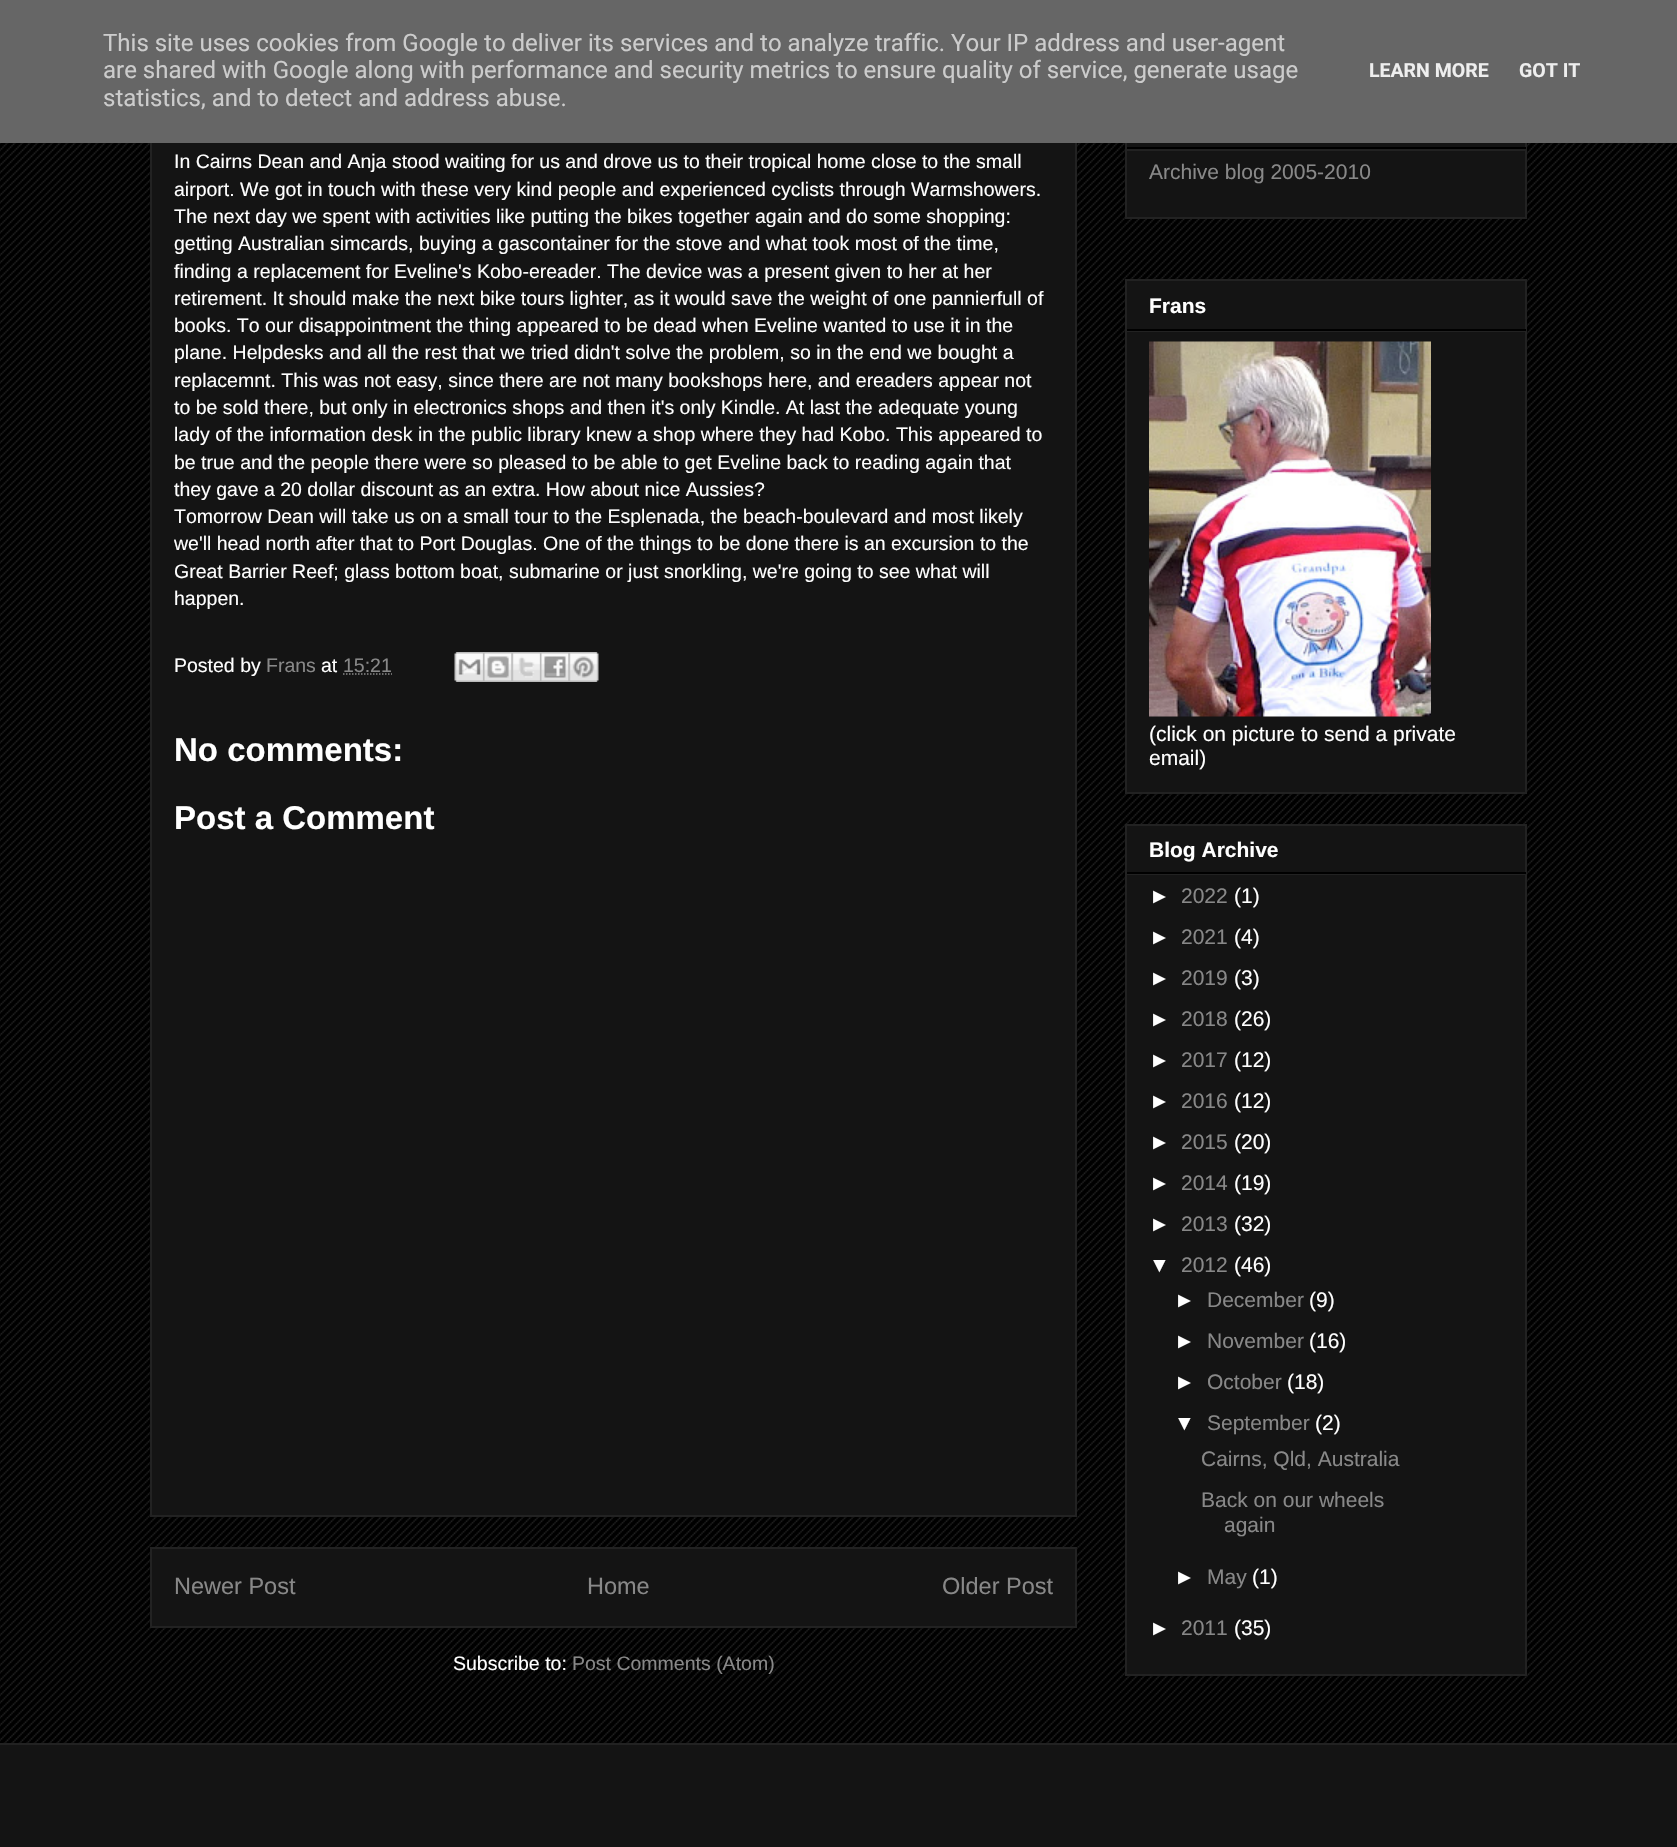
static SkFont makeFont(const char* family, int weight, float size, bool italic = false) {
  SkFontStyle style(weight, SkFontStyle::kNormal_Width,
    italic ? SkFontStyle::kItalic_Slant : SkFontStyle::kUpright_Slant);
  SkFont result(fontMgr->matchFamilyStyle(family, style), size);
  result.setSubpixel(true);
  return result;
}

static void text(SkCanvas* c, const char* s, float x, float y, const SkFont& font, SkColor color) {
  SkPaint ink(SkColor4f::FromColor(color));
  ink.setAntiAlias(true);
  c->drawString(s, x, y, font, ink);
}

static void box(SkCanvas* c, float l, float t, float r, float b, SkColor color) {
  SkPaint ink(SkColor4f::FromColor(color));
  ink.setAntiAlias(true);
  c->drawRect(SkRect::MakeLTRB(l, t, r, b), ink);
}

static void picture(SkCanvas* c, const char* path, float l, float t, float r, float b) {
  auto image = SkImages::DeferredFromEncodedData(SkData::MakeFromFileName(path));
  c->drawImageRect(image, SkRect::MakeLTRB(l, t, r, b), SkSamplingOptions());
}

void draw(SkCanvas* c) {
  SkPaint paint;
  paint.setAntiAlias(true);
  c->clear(0xff000000);
  picture(c, "img_01.png", 0, 143, 1677, 1743);
  box(c, 152, 143, 1075, 1515, 0xff141414);
  paint.setStyle(SkPaint::kStroke_Style);
  paint.setStrokeWidth(2);
  paint.setColor(0xff222222);
  c->drawRect(SkRect::MakeLTRB(151, -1, 1076, 1516), paint);
  box(c, 1127, 143, 1525, 217, 0xff141414);
  c->drawRect(SkRect::MakeLTRB(1126, -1, 1526, 218), paint);
  box(c, 0, 0, 1677, 143, 0xff666666);
  SkFont face1 = makeFont("Roboto", 400, 24);
  text(c, "This site uses cookies from Google to deliver its services and to analyze traffic. Your IP address and user-agent", 103, 51, face1, 0xffcccccc);
  text(c, "are shared with Google along with performance and security metrics to ensure quality of service, generate usage", 103, 78, face1, 0xffcccccc);
  text(c, "statistics, and to detect and address abuse.", 103, 106, face1, 0xffcccccc);
  SkFont face2 = makeFont("Roboto", 700, 19.5f);
  text(c, "LEARN MORE", 1369, 77, face2, 0xffeeeeee);
  text(c, "GOT IT", 1519, 77, face2, 0xffeeeeee);
  SkFont face3 = makeFont("Liberation Sans", 400, 19.5f);
  text(c, "In Cairns Dean and Anja stood waiting for us and drove us to their tropical home close to the small", 174, 168, face3, 0xffffffff);
  text(c, "airport. We got in touch with these very kind people and experienced cyclists through Warmshowers.", 174, 196, face3, 0xffffffff);
  text(c, "The next day we spent with activities like putting the bikes together again and do some shopping:", 174, 223, face3, 0xffffffff);
  text(c, "getting Australian simcards, buying a gascontainer for the stove and what took most of the time,", 174, 250, face3, 0xffffffff);
  text(c, "finding a replacement for Eveline's Kobo-ereader. The device was a present given to her at her", 174, 278, face3, 0xffffffff);
  text(c, "retirement. It should make the next bike tours lighter, as it would save the weight of one pannierfull of", 174, 305, face3, 0xffffffff);
  text(c, "books. To our disappointment the thing appeared to be dead when Eveline wanted to use it in the", 174, 332, face3, 0xffffffff);
  text(c, "plane. Helpdesks and all the rest that we tried didn't solve the problem, so in the end we bought a", 174, 359, face3, 0xffffffff);
  text(c, "replacemnt. This was not easy, since there are not many bookshops here, and ereaders appear not", 174, 387, face3, 0xffffffff);
  text(c, "to be sold there, but only in electronics shops and then it's only Kindle. At last the adequate young", 174, 414, face3, 0xffffffff);
  text(c, "lady of the information desk in the public library knew a shop where they had Kobo. This appeared to", 174, 441, face3, 0xffffffff);
  text(c, "be true and the people there were so pleased to be able to get Eveline back to reading again that", 174, 469, face3, 0xffffffff);
  text(c, "they gave a 20 dollar discount as an extra. How about nice Aussies?", 174, 496, face3, 0xffffffff);
  text(c, "Tomorrow Dean will take us on a small tour to the Esplenada, the beach-boulevard and most likely", 174, 523, face3, 0xffffffff);
  text(c, "we'll head north after that to Port Douglas. One of the things to be done there is an excursion to the", 174, 550, face3, 0xffffffff);
  text(c, "Great Barrier Reef; glass bottom boat, submarine or just snorkling, we're going to see what will", 174, 578, face3, 0xffffffff);
  text(c, "happen.", 174, 605, face3, 0xffffffff);
  text(c, "Posted by", 174, 672, face3, 0xffffffff);
  text(c, "Frans", 266, 672, face3, 0xff888888);
  text(c, "at", 321, 672, face3, 0xffffffff);
  text(c, "15:21", 343, 672, face3, 0xff888888);
  paint.setStrokeWidth(1.5f);
  paint.setColor(0xff888888);
  paint.setPathEffect(SkDashPathEffect::Make({{1.5f, 1.5f}}, 0));
  c->drawPath(SkPathBuilder().moveTo(343, 674).lineTo(392, 674).detach(), paint);
  paint.setPathEffect(nullptr);
  picture(c, "img_02.png", 454, 652, 483, 682);
  picture(c, "img_03.png", 483, 652, 512, 682);
  picture(c, "img_04.png", 511, 652, 540, 682);
  picture(c, "img_05.png", 540, 652, 569, 682);
  picture(c, "img_06.png", 568, 652, 599, 682);
  SkFont face4 = makeFont("Liberation Sans", 700, 33);
  text(c, "No comments:", 174, 761, face4, 0xffffffff);
  text(c, "Post a Comment", 174, 829, face4, 0xffffffff);
  paint.setStyle(SkPaint::kFill_Style);
  paint.setColor(0xff141414);
  c->drawRect(SkRect::MakeLTRB(151, 1548, 1076, 1627), paint);
  paint.setStyle(SkPaint::kStroke_Style);
  paint.setStrokeWidth(2);
  paint.setColor(0xff222222);
  c->drawRect(SkRect::MakeLTRB(151, 1548, 1076, 1627), paint);
  SkFont face5 = makeFont("Liberation Sans", 400, 23.5f);
  text(c, "Newer Post", 174, 1594, face5, 0xff888888);
  text(c, "Home", 587, 1594, face5, 0xff888888);
  text(c, "Older Post", 942, 1594, face5, 0xff888888);
  text(c, "Subscribe to:", 453, 1670, face3, 0xffffffff);
  text(c, "Post Comments (Atom)", 572, 1670, face3, 0xff888888);
  box(c, 1127, 147, 1526, 149, 0xff000000);
  box(c, 1127, 149, 1526, 151, 0xff222222);
  SkFont face6 = makeFont("Liberation Sans", 400, 21);
  text(c, "Archive blog 2005-2010", 1149, 179, face6, 0xff888888);
  paint.setStyle(SkPaint::kFill_Style);
  paint.setColor(0xff141414);
  c->drawRect(SkRect::MakeLTRB(1126, 280, 1526, 793), paint);
  paint.setStyle(SkPaint::kStroke_Style);
  paint.setColor(0xff222222);
  c->drawRect(SkRect::MakeLTRB(1126, 280, 1526, 793), paint);
  box(c, 1127, 329, 1526, 331, 0xff000000);
  SkFont face7 = makeFont("Liberation Sans", 700, 21);
  text(c, "Frans", 1149, 313, face7, 0xffffffff);
  box(c, 1127, 331, 1526, 332, 0xff222222);
  picture(c, "img_07.png", 1149, 341, 1431, 717);
  text(c, "(click on picture to send a private", 1149, 741, face6, 0xffffffff);
  text(c, "email)", 1149, 765, face6, 0xffffffff);
  paint.setStyle(SkPaint::kFill_Style);
  paint.setColor(0xff141414);
  c->drawRect(SkRect::MakeLTRB(1126, 825, 1526, 1675), paint);
  paint.setStyle(SkPaint::kStroke_Style);
  paint.setColor(0xff222222);
  c->drawRect(SkRect::MakeLTRB(1126, 825, 1526, 1675), paint);
  box(c, 1127, 872, 1526, 874, 0xff000000);
  text(c, "Blog Archive", 1149, 857, face7, 0xffffffff);
  box(c, 1127, 874, 1526, 875, 0xff222222);
  text(c, "►", 1149, 903, face6, 0xffffffff);
  text(c, "2022", 1181, 903, face6, 0xff888888);
  text(c, "(1)", 1234, 903, face6, 0xffffffff);
  text(c, "►", 1149, 944, face6, 0xffffffff);
  text(c, "2021", 1181, 944, face6, 0xff888888);
  text(c, "(4)", 1234, 944, face6, 0xffffffff);
  text(c, "►", 1149, 985, face6, 0xffffffff);
  text(c, "2019", 1181, 985, face6, 0xff888888);
  text(c, "(3)", 1234, 985, face6, 0xffffffff);
  text(c, "►", 1149, 1026, face6, 0xffffffff);
  text(c, "2018", 1181, 1026, face6, 0xff888888);
  text(c, "(26)", 1234, 1026, face6, 0xffffffff);
  text(c, "►", 1149, 1067, face6, 0xffffffff);
  text(c, "2017", 1181, 1067, face6, 0xff888888);
  text(c, "(12)", 1234, 1067, face6, 0xffffffff);
  text(c, "►", 1149, 1108, face6, 0xffffffff);
  text(c, "2016", 1181, 1108, face6, 0xff888888);
  text(c, "(12)", 1234, 1108, face6, 0xffffffff);
  text(c, "►", 1149, 1149, face6, 0xffffffff);
  text(c, "2015", 1181, 1149, face6, 0xff888888);
  text(c, "(20)", 1234, 1149, face6, 0xffffffff);
  text(c, "►", 1149, 1190, face6, 0xffffffff);
  text(c, "2014", 1181, 1190, face6, 0xff888888);
  text(c, "(19)", 1234, 1190, face6, 0xffffffff);
  text(c, "►", 1149, 1231, face6, 0xffffffff);
  text(c, "2013", 1181, 1231, face6, 0xff888888);
  text(c, "(32)", 1234, 1231, face6, 0xffffffff);
  text(c, "▼", 1149, 1272, face6, 0xffffffff);
  text(c, "2012", 1181, 1272, face6, 0xff888888);
  text(c, "(46)", 1234, 1272, face6, 0xffffffff);
  text(c, "►", 1174, 1307, face6, 0xffffffff);
  text(c, "December", 1207, 1307, face6, 0xff888888);
  text(c, "(9)", 1309, 1307, face6, 0xffffffff);
  text(c, "►", 1174, 1348, face6, 0xffffffff);
  text(c, "November", 1207, 1348, face6, 0xff888888);
  text(c, "(16)", 1309, 1348, face6, 0xffffffff);
  text(c, "►", 1174, 1389, face6, 0xffffffff);
  text(c, "October", 1207, 1389, face6, 0xff888888);
  text(c, "(18)", 1287, 1389, face6, 0xffffffff);
  text(c, "▼", 1174, 1430, face6, 0xffffffff);
  text(c, "September", 1207, 1430, face6, 0xff888888);
  text(c, "(2)", 1315, 1430, face6, 0xffffffff);
  text(c, "Cairns, Qld, Australia", 1201, 1466, face6, 0xff888888);
  text(c, "Back on our wheels", 1201, 1507, face6, 0xff888888);
  text(c, "again", 1224, 1532, face6, 0xff888888);
  text(c, "►", 1174, 1584, face6, 0xffffffff);
  text(c, "May", 1207, 1584, face6, 0xff888888);
  text(c, "(1)", 1252, 1584, face6, 0xffffffff);
  text(c, "►", 1149, 1635, face6, 0xffffffff);
  text(c, "2011", 1181, 1635, face6, 0xff888888);
  text(c, "(35)", 1234, 1635, face6, 0xffffffff);
  box(c, 0, 1745, 1677, 1847, 0xff141414);
  box(c, 0, 1743, 1677, 1745, 0xff222222);
}
